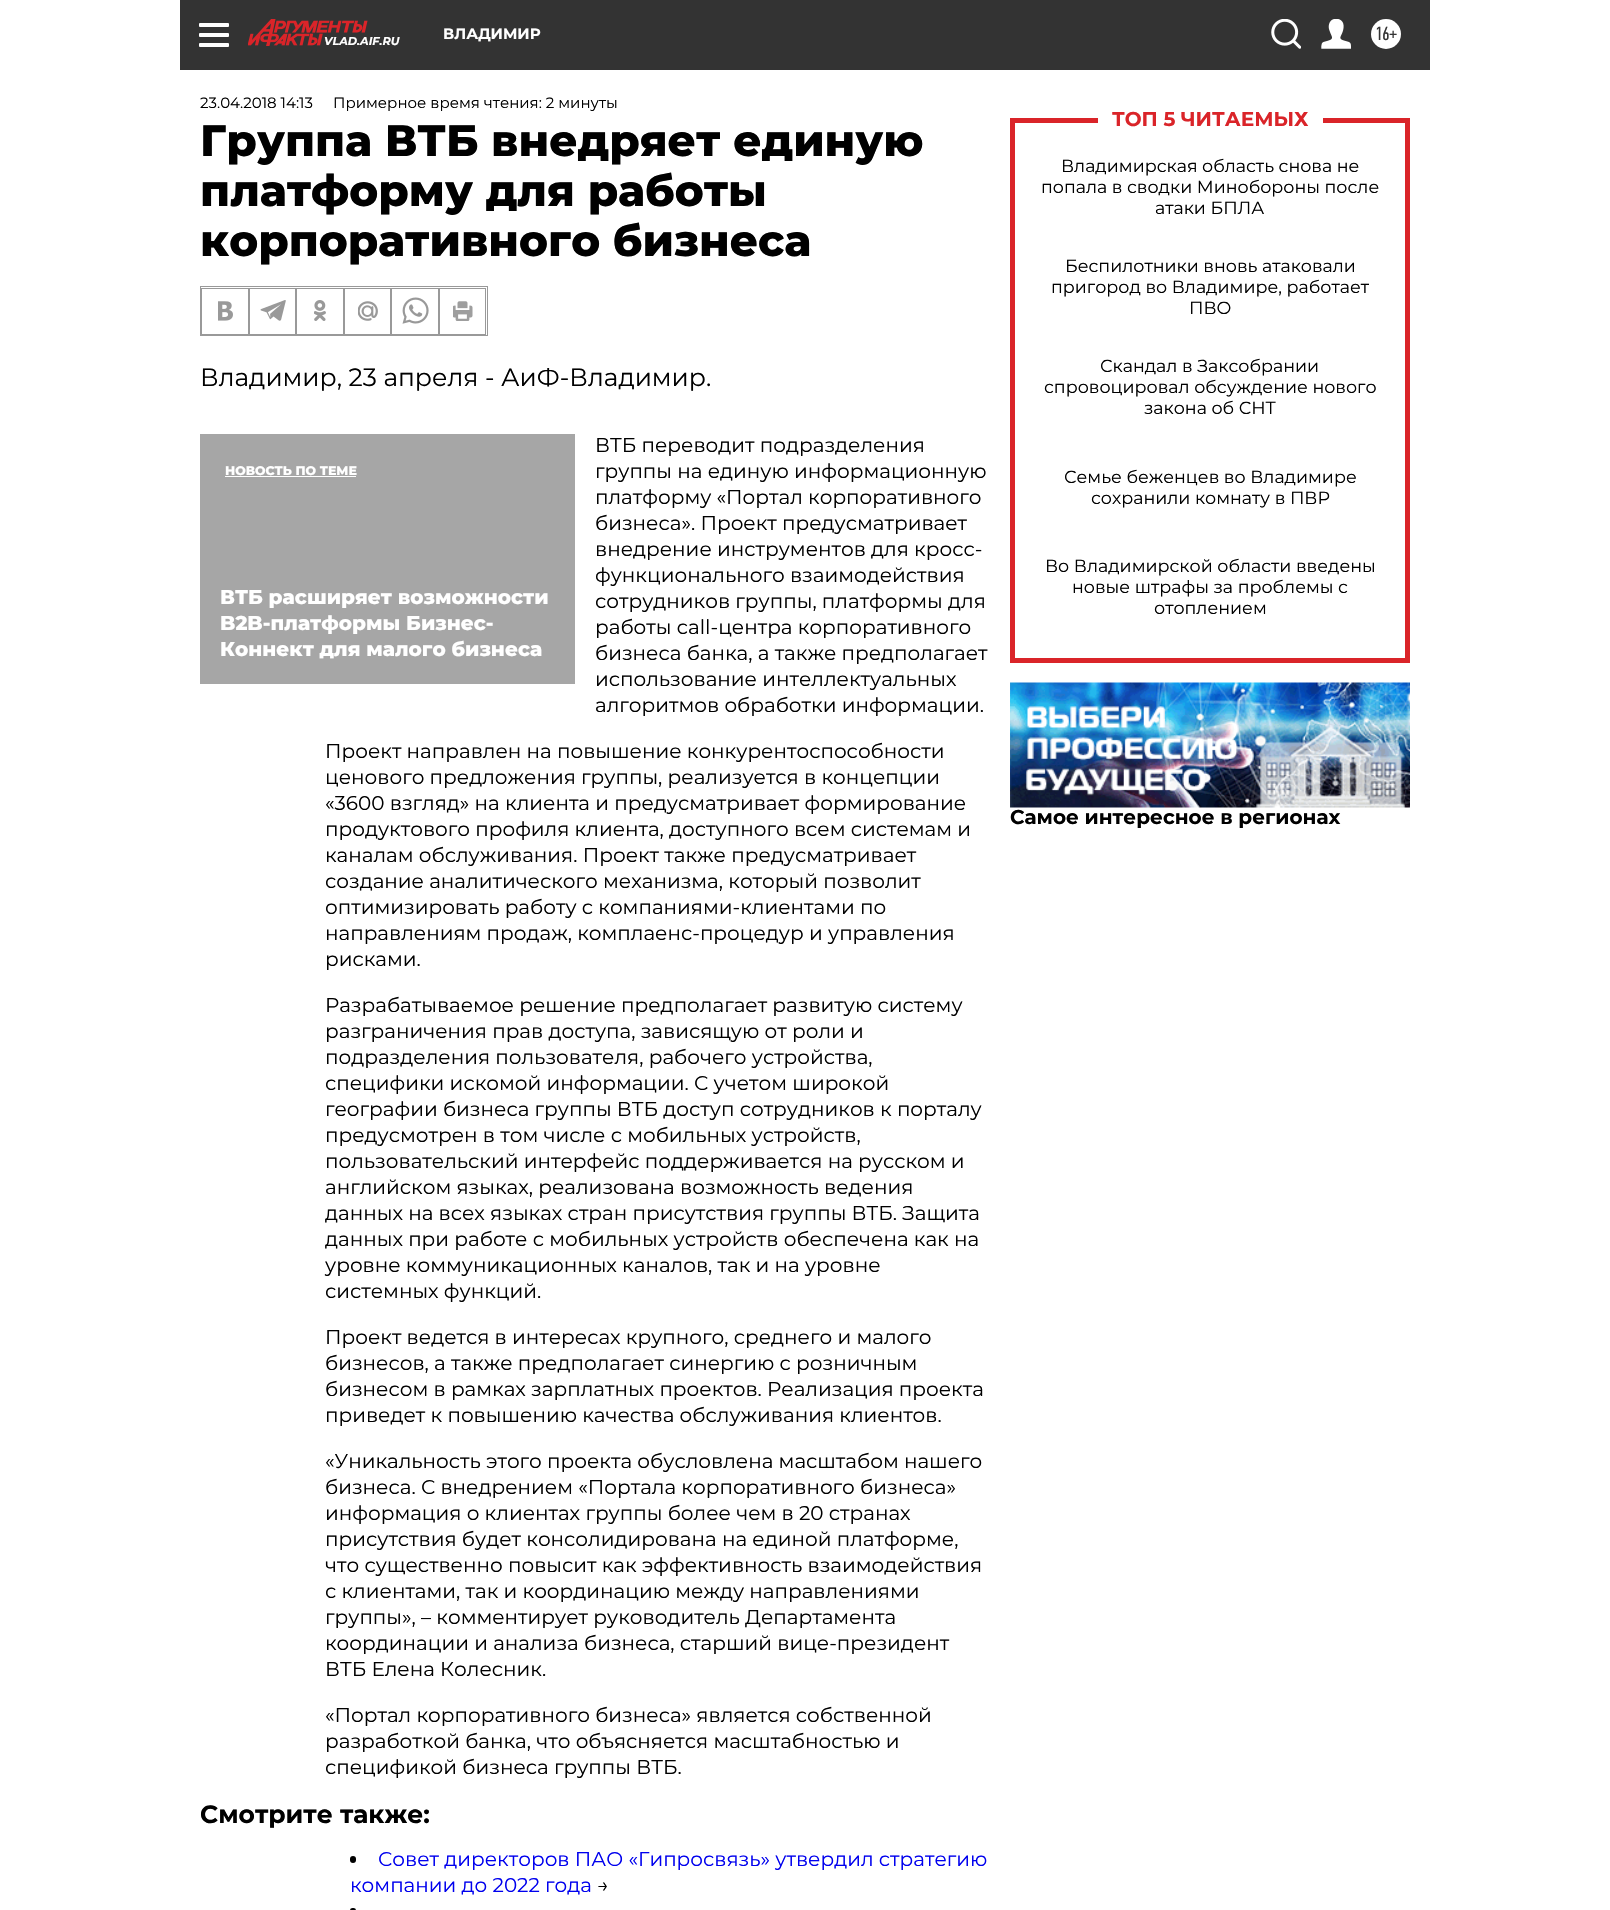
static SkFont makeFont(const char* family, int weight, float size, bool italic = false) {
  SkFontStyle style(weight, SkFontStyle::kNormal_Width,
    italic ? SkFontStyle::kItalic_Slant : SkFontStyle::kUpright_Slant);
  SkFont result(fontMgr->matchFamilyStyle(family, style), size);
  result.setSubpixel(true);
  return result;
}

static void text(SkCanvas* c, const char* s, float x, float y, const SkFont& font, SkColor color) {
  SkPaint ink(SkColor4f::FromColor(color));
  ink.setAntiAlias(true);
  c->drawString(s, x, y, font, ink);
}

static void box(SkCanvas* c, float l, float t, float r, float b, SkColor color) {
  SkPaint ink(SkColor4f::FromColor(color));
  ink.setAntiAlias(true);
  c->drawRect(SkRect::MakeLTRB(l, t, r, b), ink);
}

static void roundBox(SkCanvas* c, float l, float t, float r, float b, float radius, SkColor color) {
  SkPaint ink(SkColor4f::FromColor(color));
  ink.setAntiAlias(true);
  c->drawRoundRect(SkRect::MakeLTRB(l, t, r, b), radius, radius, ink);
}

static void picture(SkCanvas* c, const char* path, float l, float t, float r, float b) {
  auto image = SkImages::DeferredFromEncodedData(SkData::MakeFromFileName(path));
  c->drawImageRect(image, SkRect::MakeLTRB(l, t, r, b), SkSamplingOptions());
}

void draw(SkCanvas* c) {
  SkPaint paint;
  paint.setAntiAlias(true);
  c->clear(0xffffffff);
  box(c, 180, 0, 1430, 70, 0xff333333);
  roundBox(c, 199, 23, 229, 27, 1, 0xffffffff);
  roundBox(c, 199, 33, 229, 37, 1, 0xffffffff);
  roundBox(c, 199, 43, 229, 47, 1, 0xffffffff);
  picture(c, "img_01.png", 248, 19, 368, 46);
  SkFont face1 = makeFont("Montserrat", 700, 11.25f, true);
  text(c, "VLAD.AIF.RU", 324, 45, face1, 0xffffffff);
  SkFont face2 = makeFont("Montserrat", 700, 15);
  text(c, "ВЛАДИМИР", 443, 39, face2, 0xffffffff);
  picture(c, "img_02.png", 1271, 19, 1301, 49);
  picture(c, "img_03.png", 1321, 19, 1351, 49);
  paint.setColor(0xffffffff);
  c->drawCircle(1386, 34, 15, paint);
  SkFont face3 = makeFont("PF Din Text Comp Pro", 400, 19);
  text(c, "16+", 1375, 40, face3, 0xff333333);
  SkFont face4 = makeFont("Montserrat", 400, 15);
  text(c, "23.04.2018 14:13", 200, 108, face4, 0xff000000);
  text(c, "Примерное время чтения: 2 минуты", 333, 108, face4, 0xff000000);
  SkFont face5 = makeFont("Montserrat", 800, 43.75f);
  text(c, "Группа ВТБ внедряет единую", 200, 156, face5, 0xff000000);
  text(c, "платформу для работы", 200, 206, face5, 0xff000000);
  text(c, "корпоративного бизнеса", 200, 256, face5, 0xff000000);
  paint.setStyle(SkPaint::kStroke_Style);
  paint.setStrokeWidth(1);
  paint.setColor(0xff999999);
  c->drawRect(SkRect::MakeLTRB(200.5f, 286.5f, 487.5f, 335.5f), paint);
  c->drawRect(SkRect::MakeLTRB(201.5f, 288.5f, 248.5f, 334.5f), paint);
  picture(c, "img_04.png", 218, 301, 233, 321);
  c->drawRect(SkRect::MakeLTRB(249.5f, 288.5f, 295.5f, 334.5f), paint);
  picture(c, "img_05.png", 260, 300, 286, 321);
  c->drawRect(SkRect::MakeLTRB(296.5f, 288.5f, 343.5f, 334.5f), paint);
  picture(c, "img_06.png", 314, 300, 326, 321);
  c->drawRect(SkRect::MakeLTRB(344.5f, 288.5f, 390.5f, 334.5f), paint);
  picture(c, "img_07.png", 358, 301, 378, 321);
  c->drawRect(SkRect::MakeLTRB(391.5f, 288.5f, 438.5f, 334.5f), paint);
  picture(c, "img_08.png", 402, 297, 429, 324);
  c->drawRect(SkRect::MakeLTRB(439.5f, 288.5f, 485.5f, 334.5f), paint);
  picture(c, "img_09.png", 453, 301, 473, 321);
  SkFont face6 = makeFont("Montserrat", 400, 25);
  text(c, "Владимир, 23 апреля - АиФ-Владимир.", 200, 386, face6, 0xff000000);
  box(c, 200, 434, 575, 684, 0xffa6a6a6);
  SkFont face7 = makeFont("Montserrat", 800, 12.5f);
  text(c, "НОВОСТЬ ПО ТЕМЕ", 225, 475, face7, 0xffffffff);
  box(c, 225, 476, 356, 477, 0xffffffff);
  SkFont face8 = makeFont("Montserrat", 800, 20);
  text(c, "ВТБ расширяет возможности", 220, 604, face8, 0xffffffff);
  text(c, "B2B-платформы Бизнес-", 220, 630, face8, 0xffffffff);
  text(c, "Коннект для малого бизнеса", 220, 656, face8, 0xffffffff);
  SkFont face9 = makeFont("Montserrat", 400, 20);
  text(c, "ВТБ переводит подразделения", 595, 452, face9, 0xff000000);
  text(c, "группы на единую информационную", 595, 478, face9, 0xff000000);
  text(c, "платформу «Портал корпоративного", 595, 504, face9, 0xff000000);
  text(c, "бизнеса». Проект предусматривает", 595, 530, face9, 0xff000000);
  text(c, "внедрение инструментов для кросс-", 595, 556, face9, 0xff000000);
  text(c, "функционального взаимодействия", 595, 582, face9, 0xff000000);
  text(c, "сотрудников группы, платформы для", 595, 608, face9, 0xff000000);
  text(c, "работы call-центра корпоративного", 595, 634, face9, 0xff000000);
  text(c, "бизнеса банка, а также предполагает", 595, 660, face9, 0xff000000);
  text(c, "использование интеллектуальных", 595, 686, face9, 0xff000000);
  text(c, "алгоритмов обработки информации.", 595, 712, face9, 0xff000000);
  text(c, "Проект направлен на повышение конкурентоспособности", 325, 758, face9, 0xff000000);
  text(c, "ценового предложения группы, реализуется в концепции", 325, 784, face9, 0xff000000);
  text(c, "«3600 взгляд» на клиента и предусматривает формирование", 325, 810, face9, 0xff000000);
  text(c, "продуктового профиля клиента, доступного всем системам и", 325, 836, face9, 0xff000000);
  text(c, "каналам обслуживания. Проект также предусматривает", 325, 862, face9, 0xff000000);
  text(c, "создание аналитического механизма, который позволит", 325, 888, face9, 0xff000000);
  text(c, "оптимизировать работу с компаниями-клиентами по", 325, 914, face9, 0xff000000);
  text(c, "направлениям продаж, комплаенс-процедур и управления", 325, 940, face9, 0xff000000);
  text(c, "рисками.", 325, 966, face9, 0xff000000);
  text(c, "Разрабатываемое решение предполагает развитую систему", 325, 1012, face9, 0xff000000);
  text(c, "разграничения прав доступа, зависящую от роли и", 325, 1038, face9, 0xff000000);
  text(c, "подразделения пользователя, рабочего устройства,", 325, 1064, face9, 0xff000000);
  text(c, "специфики искомой информации. С учетом широкой", 325, 1090, face9, 0xff000000);
  text(c, "географии бизнеса группы ВТБ доступ сотрудников к порталу", 325, 1116, face9, 0xff000000);
  text(c, "предусмотрен в том числе с мобильных устройств,", 325, 1142, face9, 0xff000000);
  text(c, "пользовательский интерфейс поддерживается на русском и", 325, 1168, face9, 0xff000000);
  text(c, "английском языках, реализована возможность ведения", 325, 1194, face9, 0xff000000);
  text(c, "данных на всех языках стран присутствия группы ВТБ. Защита", 325, 1220, face9, 0xff000000);
  text(c, "данных при работе с мобильных устройств обеспечена как на", 325, 1246, face9, 0xff000000);
  text(c, "уровне коммуникационных каналов, так и на уровне", 325, 1272, face9, 0xff000000);
  text(c, "системных функций.", 325, 1298, face9, 0xff000000);
  text(c, "Проект ведется в интересах крупного, среднего и малого", 325, 1344, face9, 0xff000000);
  text(c, "бизнесов, а также предполагает синергию с розничным", 325, 1370, face9, 0xff000000);
  text(c, "бизнесом в рамках зарплатных проектов. Реализация проекта", 325, 1396, face9, 0xff000000);
  text(c, "приведет к повышению качества обслуживания клиентов.", 325, 1422, face9, 0xff000000);
  text(c, "«Уникальность этого проекта обусловлена масштабом нашего", 325, 1468, face9, 0xff000000);
  text(c, "бизнеса. С внедрением «Портала корпоративного бизнеса»", 325, 1494, face9, 0xff000000);
  text(c, "информация о клиентах группы более чем в 20 странах", 325, 1520, face9, 0xff000000);
  text(c, "присутствия будет консолидирована на единой платформе,", 325, 1546, face9, 0xff000000);
  text(c, "что существенно повысит как эффективность взаимодействия", 325, 1572, face9, 0xff000000);
  text(c, "с клиентами, так и координацию между направлениями", 325, 1598, face9, 0xff000000);
  text(c, "группы», – комментирует руководитель Департамента", 325, 1624, face9, 0xff000000);
  text(c, "координации и анализа бизнеса, старший вице-президент", 325, 1650, face9, 0xff000000);
  text(c, "ВТБ Елена Колесник.", 325, 1676, face9, 0xff000000);
  text(c, "«Портал корпоративного бизнеса» является собственной", 325, 1722, face9, 0xff000000);
  text(c, "разработкой банка, что объясняется масштабностью и", 325, 1748, face9, 0xff000000);
  text(c, "спецификой бизнеса группы ВТБ.", 325, 1774, face9, 0xff000000);
  SkFont face10 = makeFont("Montserrat", 700, 25);
  text(c, "Смотрите также:", 200, 1823, face10, 0xff000000);
  roundBox(c, 350, 1856, 356, 1863, 3, 0xff000000);
  text(c, "Совет директоров ПАО «Гипросвязь» утвердил стратегию", 378, 1866, face9, 0xff0000ee);
  text(c, "компании до 2022 года", 350, 1892, face9, 0xff0000ee);
  text(c, "→", 597, 1892, face9, 0xff000000);
  roundBox(c, 350, 1908, 356, 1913, 3, 0xff000000);
  box(c, 1405, 118, 1410, 663, 0xffda2429);
  box(c, 1010, 658, 1410, 663, 0xffda2429);
  box(c, 1010, 118, 1015, 663, 0xffda2429);
  box(c, 1010, 118, 1098, 123, 0xffda2429);
  SkFont face11 = makeFont("Montserrat", 700, 20);
  text(c, "ТОП 5 ЧИТАЕМЫХ", 1112, 126, face11, 0xffda2429);
  box(c, 1323, 118, 1410, 123, 0xffda2429);
  SkFont face12 = makeFont("Montserrat", 400, 17.5f);
  text(c, "Владимирская область снова не", 1061, 172, face12, 0xff000000);
  text(c, "попала в сводки Минобороны после", 1041, 193, face12, 0xff000000);
  text(c, "атаки БПЛА", 1155, 214, face12, 0xff000000);
  text(c, "Беспилотники вновь атаковали", 1065, 272, face12, 0xff000000);
  text(c, "пригород во Владимире, работает", 1051, 293, face12, 0xff000000);
  text(c, "ПВО", 1189, 314, face12, 0xff000000);
  text(c, "Скандал в Заксобрании", 1100, 372, face12, 0xff000000);
  text(c, "спровоцировал обсуждение нового", 1044, 393, face12, 0xff000000);
  text(c, "закона об СНТ", 1144, 414, face12, 0xff000000);
  text(c, "Семье беженцев во Владимире", 1064, 483, face12, 0xff000000);
  text(c, "сохранили комнату в ПВР", 1091, 504, face12, 0xff000000);
  text(c, "Во Владимирской области введены", 1045, 572, face12, 0xff000000);
  text(c, "новые штрафы за проблемы с", 1072, 593, face12, 0xff000000);
  text(c, "отоплением", 1154, 614, face12, 0xff000000);
  picture(c, "img_10.png", 1010, 682, 1410, 808);
  text(c, "Самое интересное в регионах", 1010, 824, face11, 0xff000000);
}
